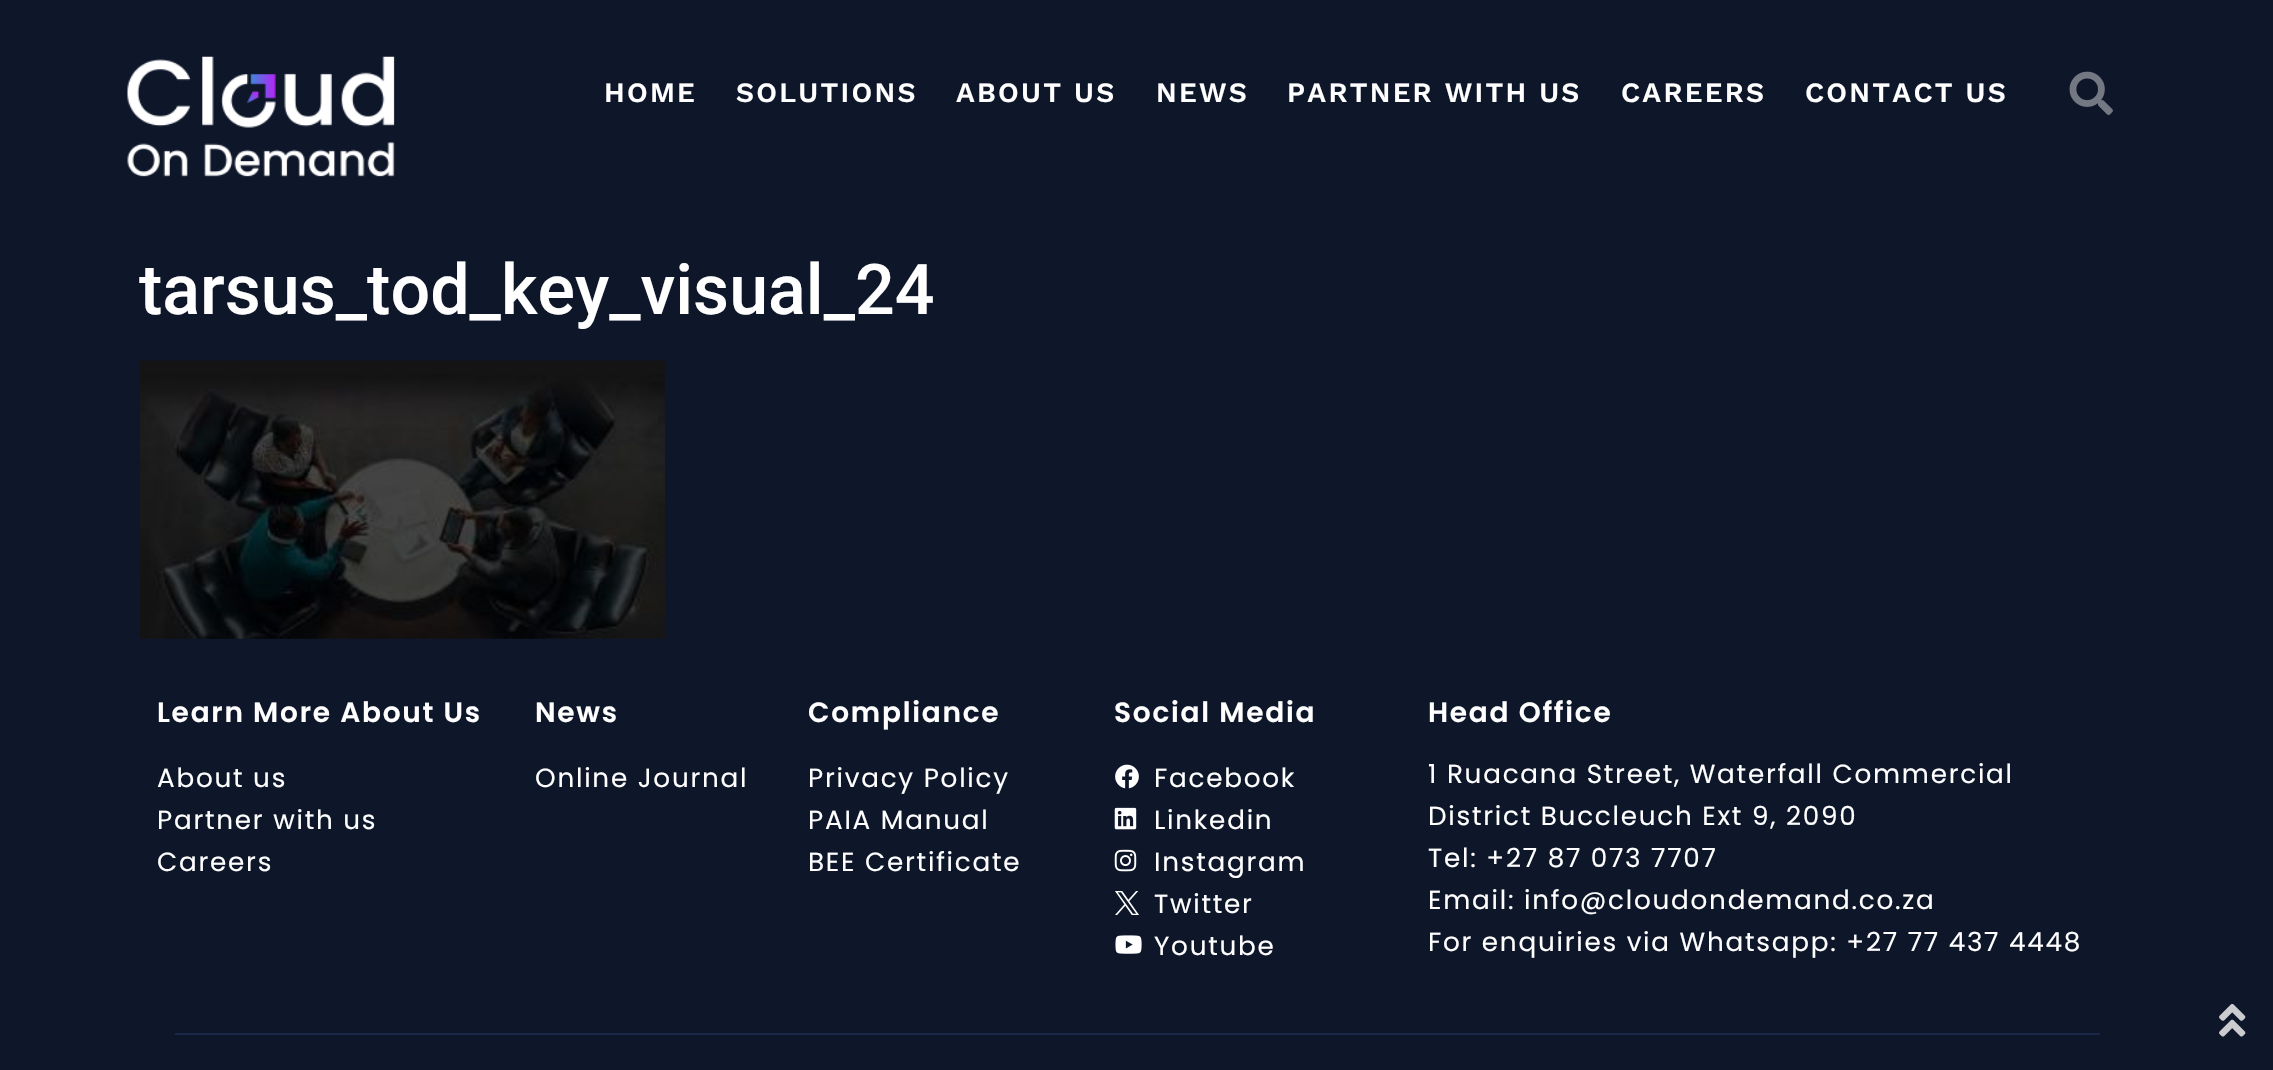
static SkFont makeFont(const char* family, int weight, float size, bool italic = false) {
  SkFontStyle style(weight, SkFontStyle::kNormal_Width,
    italic ? SkFontStyle::kItalic_Slant : SkFontStyle::kUpright_Slant);
  SkFont result(fontMgr->matchFamilyStyle(family, style), size);
  result.setSubpixel(true);
  return result;
}

static void text(SkCanvas* c, const char* s, float x, float y, const SkFont& font, SkColor color) {
  SkPaint ink(SkColor4f::FromColor(color));
  ink.setAntiAlias(true);
  c->drawString(s, x, y, font, ink);
}

static void spacedText(SkCanvas* c, const char* s, float x, float y, const SkFont& font, const SkPaint& ink, float letter, float word) {
  std::vector<SkGlyphID> glyphs(font.countText(s, strlen(s), SkTextEncoding::kUTF8));
  std::vector<float> xs(glyphs.size());
  font.textToGlyphs(s, strlen(s), SkTextEncoding::kUTF8, glyphs);
  font.getXPos(glyphs, xs, x);
  float extra = 0;
  for (size_t i = 0; i < glyphs.size(); i++) {
    xs[i] += extra;
    extra += letter + word * (glyphs[i] == font.unicharToGlyph(' '));
  }
  c->drawTextBlob(SkTextBlob::MakeFromPosHGlyphs(glyphs, xs, y, font), 0, 0, ink);
}

static void box(SkCanvas* c, float l, float t, float r, float b, SkColor color) {
  SkPaint ink(SkColor4f::FromColor(color));
  ink.setAntiAlias(true);
  c->drawRect(SkRect::MakeLTRB(l, t, r, b), ink);
}

static void picture(SkCanvas* c, const char* path, float l, float t, float r, float b) {
  auto image = SkImages::DeferredFromEncodedData(SkData::MakeFromFileName(path));
  c->drawImageRect(image, SkRect::MakeLTRB(l, t, r, b), SkSamplingOptions());
}

void draw(SkCanvas* c) {
  SkPaint paint;
  paint.setAntiAlias(true);
  c->clear(0xff0e1629);
  picture(c, "img_01.png", 127, 56, 395, 177);
  SkFont face1 = makeFont("Work Sans", 600, 28);
  paint.setColor(0xffffffff);
  spacedText(c, "HOME", 604, 102, face1, paint, 2.25f, 0);
  spacedText(c, "SOLUTIONS", 736, 102, face1, paint, 2.25f, 0);
  spacedText(c, "ABOUT US", 956, 102, face1, paint, 2.25f, 0);
  spacedText(c, "NEWS", 1156, 102, face1, paint, 2.25f, 0);
  spacedText(c, "PARTNER WITH US", 1287, 102, face1, paint, 2.25f, 0);
  spacedText(c, "CAREERS", 1621, 102, face1, paint, 2.25f, 0);
  spacedText(c, "CONTACT US", 1805, 102, face1, paint, 2.25f, 0);
  picture(c, "img_02.png", 2069, 71, 2113, 115);
  SkFont face2 = makeFont("Roboto", 500, 70);
  text(c, "tarsus_tod_key_visual_24", 139, 314, face2, 0xffffffff);
  picture(c, "img_03.png", 140, 360, 665, 639);
  SkFont face3 = makeFont("Poppins", 600, 28);
  spacedText(c, "Learn More About Us", 157, 722, face3, paint, 1.75f, 0);
  SkFont face4 = makeFont("Poppins", 400, 26.25f);
  spacedText(c, "About us", 157, 787, face4, paint, 1.75f, 0);
  spacedText(c, "Partner with us", 157, 829, face4, paint, 1.75f, 0);
  spacedText(c, "Careers", 157, 871, face4, paint, 1.75f, 0);
  spacedText(c, "News", 535, 722, face3, paint, 1.75f, 0);
  spacedText(c, "Online Journal", 535, 787, face4, paint, 1.75f, 0);
  spacedText(c, "Compliance", 808, 722, face3, paint, 1.75f, 0);
  spacedText(c, "Privacy Policy", 808, 787, face4, paint, 1.75f, 0);
  spacedText(c, "PAIA Manual", 808, 829, face4, paint, 1.75f, 0);
  spacedText(c, "BEE Certificate", 808, 871, face4, paint, 1.75f, 0);
  spacedText(c, "Social Media", 1114, 722, face3, paint, 1.75f, 0);
  picture(c, "img_04.png", 1115, 764, 1139, 789);
  spacedText(c, "Facebook", 1154, 787, face4, paint, 1.75f, 0);
  picture(c, "img_05.png", 1114, 807, 1137, 830);
  spacedText(c, "Linkedin", 1154, 829, face4, paint, 1.75f, 0);
  picture(c, "img_06.png", 1114, 849, 1137, 872);
  spacedText(c, "Instagram", 1154, 871, face4, paint, 1.75f, 0);
  picture(c, "img_07.png", 1115, 891, 1139, 915);
  spacedText(c, "Twitter", 1154, 913, face4, paint, 1.75f, 0);
  picture(c, "img_08.png", 1115, 935, 1142, 954);
  spacedText(c, "Youtube", 1154, 955, face4, paint, 1.75f, 0);
  spacedText(c, "Head Office", 1428, 722, face3, paint, 1.75f, 0);
  spacedText(c, "1 Ruacana Street, Waterfall Commercial", 1428, 783, face4, paint, 1.75f, 0);
  spacedText(c, "District Buccleuch Ext 9, 2090", 1428, 825, face4, paint, 1.75f, 0);
  spacedText(c, "Tel: +27 87 073 7707", 1428, 867, face4, paint, 1.75f, 0);
  spacedText(c, "Email: info@cloudondemand.co.za", 1428, 909, face4, paint, 1.75f, 0);
  spacedText(c, "For enquiries via Whatsapp: +27 77 437 4448", 1428, 951, face4, paint, 1.75f, 0);
  box(c, 175, 1033, 2100, 1035, 0xff1a2848);
  picture(c, "img_09.png", 2219, 1004, 2246, 1037);
}
